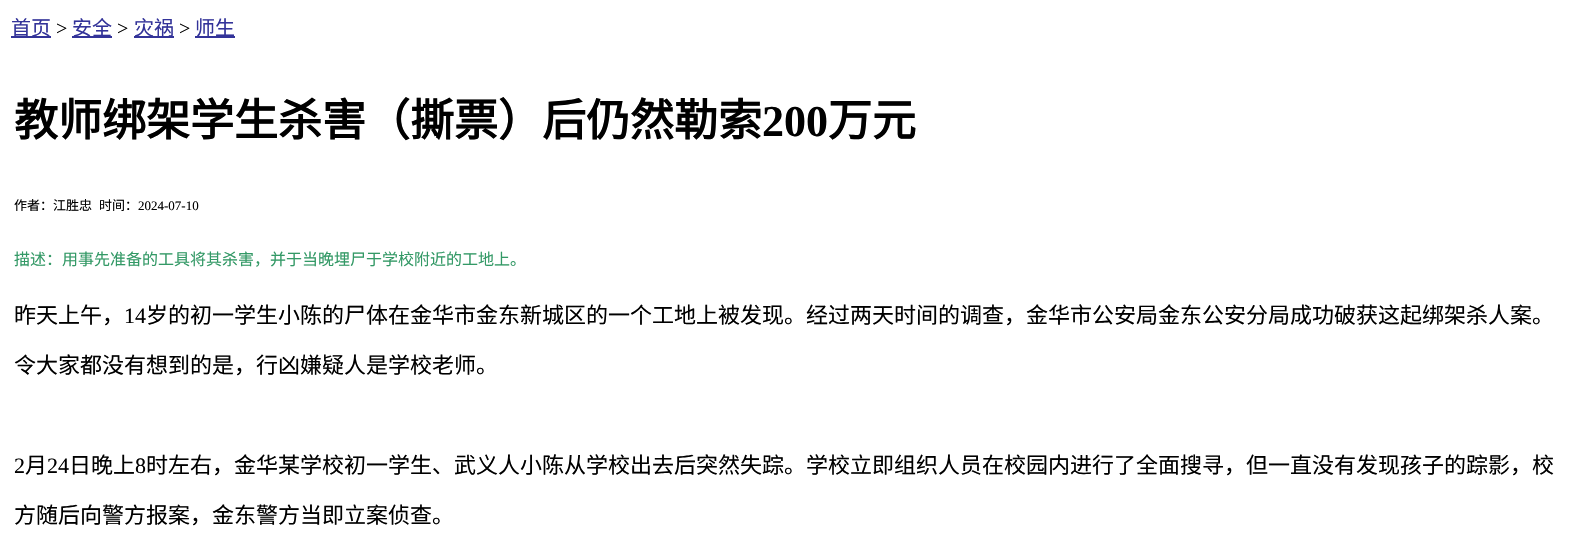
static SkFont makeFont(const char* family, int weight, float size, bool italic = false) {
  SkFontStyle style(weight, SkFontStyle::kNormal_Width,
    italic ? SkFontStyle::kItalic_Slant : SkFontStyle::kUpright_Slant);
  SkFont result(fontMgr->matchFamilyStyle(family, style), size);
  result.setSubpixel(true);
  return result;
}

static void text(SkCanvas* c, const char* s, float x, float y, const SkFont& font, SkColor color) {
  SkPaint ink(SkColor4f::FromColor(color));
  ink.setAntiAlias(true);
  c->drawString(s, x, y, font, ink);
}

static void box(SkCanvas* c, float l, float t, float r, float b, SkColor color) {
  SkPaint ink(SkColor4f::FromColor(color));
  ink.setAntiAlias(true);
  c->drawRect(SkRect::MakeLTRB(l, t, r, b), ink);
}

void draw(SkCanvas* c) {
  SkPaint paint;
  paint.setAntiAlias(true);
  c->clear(0xffffffff);
  box(c, 11, 36, 51, 38, 0xff333399);
  SkFont face1 = makeFont("Noto Sans CJK SC", 400, 20);
  text(c, "首页", 11, 35, face1, 0xff333399);
  SkFont face2 = makeFont("Liberation Serif", 400, 20);
  text(c, ">", 56, 35, face2, 0xff000000);
  box(c, 72, 36, 112, 38, 0xff333399);
  text(c, "安全", 72, 35, face1, 0xff333399);
  text(c, ">", 117, 35, face2, 0xff000000);
  box(c, 134, 36, 174, 38, 0xff333399);
  text(c, "灾祸", 134, 35, face1, 0xff333399);
  text(c, ">", 179, 35, face2, 0xff000000);
  box(c, 195, 36, 235, 38, 0xff333399);
  text(c, "师生", 195, 35, face1, 0xff333399);
  SkFont face3 = makeFont("Noto Sans CJK SC", 700, 44);
  text(c, "教师绑架学生杀害（撕票）后仍然勒索", 14, 136, face3, 0xff000000);
  SkFont face4 = makeFont("Liberation Serif", 700, 44);
  text(c, "200", 762, 136, face4, 0xff000000);
  text(c, "万元", 828, 136, face3, 0xff000000);
  SkFont face5 = makeFont("Noto Sans CJK SC", 400, 13);
  text(c, "作者：江胜忠", 14, 210, face5, 0xff000000);
  text(c, "时间：", 99, 210, face5, 0xff000000);
  SkFont face6 = makeFont("Liberation Serif", 400, 13);
  text(c, "2024-07-10", 138, 210, face6, 0xff000000);
  SkFont face7 = makeFont("Noto Sans CJK SC", 400, 16);
  text(c, "描述：用事先准备的工具将其杀害，并于当晚埋尸于学校附近的工地上。", 14, 265, face7, 0xff339966);
  SkFont face8 = makeFont("Noto Sans CJK SC", 400, 22);
  text(c, "昨天上午，", 14, 323, face8, 0xff000000);
  SkFont face9 = makeFont("Liberation Serif", 400, 22);
  text(c, "14", 124, 323, face9, 0xff000000);
  text(c, "岁的初一学生小陈的尸体在金华市金东新城区的一个工地上被发现。经过两天时间的调查，金华市公安局金东公安分局成功破获这起绑架杀人案。", 146, 323, face8, 0xff000000);
  text(c, "令大家都没有想到的是，行凶嫌疑人是学校老师。", 14, 373, face8, 0xff000000);
  text(c, "2", 14, 473, face9, 0xff000000);
  text(c, "月", 25, 473, face8, 0xff000000);
  text(c, "24", 47, 473, face9, 0xff000000);
  text(c, "日晚上", 69, 473, face8, 0xff000000);
  text(c, "8", 135, 473, face9, 0xff000000);
  text(c, "时左右，金华某学校初一学生、武义人小陈从学校出去后突然失踪。学校立即组织人员在校园内进行了全面搜寻，但一直没有发现孩子的踪影，校", 146, 473, face8, 0xff000000);
  text(c, "方随后向警方报案，金东警方当即立案侦查。", 14, 523, face8, 0xff000000);
}
